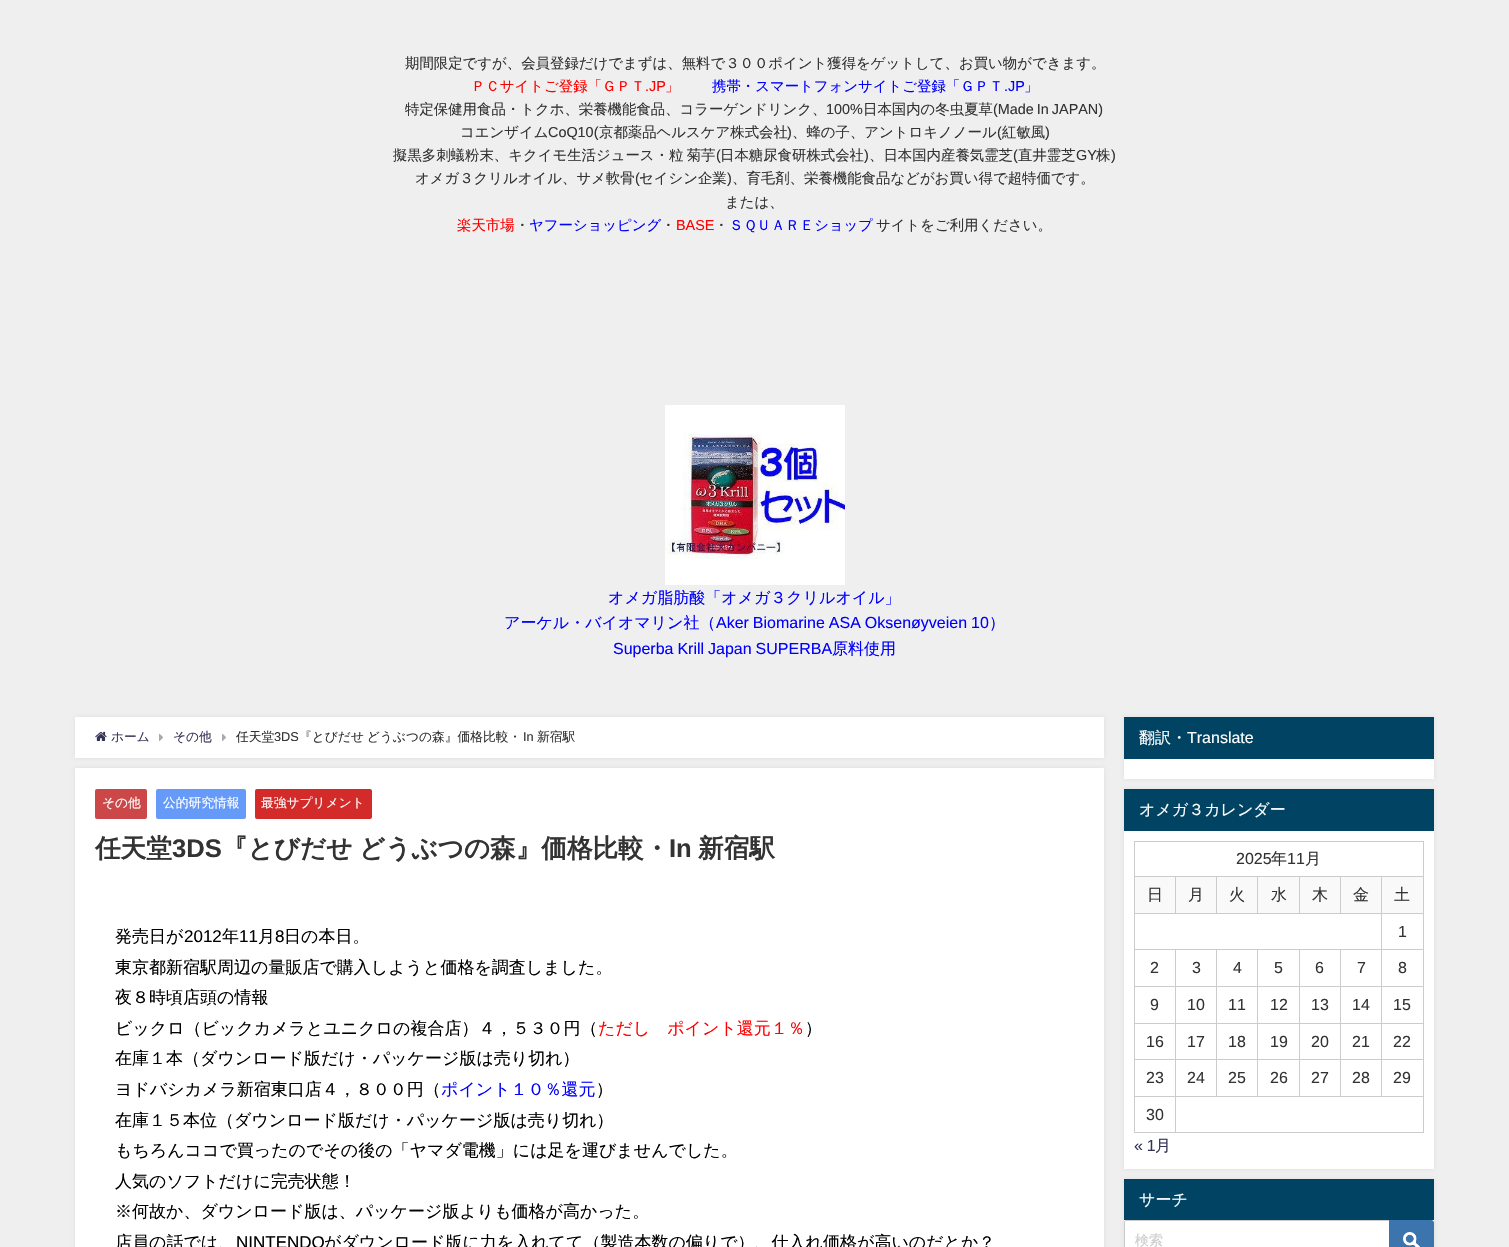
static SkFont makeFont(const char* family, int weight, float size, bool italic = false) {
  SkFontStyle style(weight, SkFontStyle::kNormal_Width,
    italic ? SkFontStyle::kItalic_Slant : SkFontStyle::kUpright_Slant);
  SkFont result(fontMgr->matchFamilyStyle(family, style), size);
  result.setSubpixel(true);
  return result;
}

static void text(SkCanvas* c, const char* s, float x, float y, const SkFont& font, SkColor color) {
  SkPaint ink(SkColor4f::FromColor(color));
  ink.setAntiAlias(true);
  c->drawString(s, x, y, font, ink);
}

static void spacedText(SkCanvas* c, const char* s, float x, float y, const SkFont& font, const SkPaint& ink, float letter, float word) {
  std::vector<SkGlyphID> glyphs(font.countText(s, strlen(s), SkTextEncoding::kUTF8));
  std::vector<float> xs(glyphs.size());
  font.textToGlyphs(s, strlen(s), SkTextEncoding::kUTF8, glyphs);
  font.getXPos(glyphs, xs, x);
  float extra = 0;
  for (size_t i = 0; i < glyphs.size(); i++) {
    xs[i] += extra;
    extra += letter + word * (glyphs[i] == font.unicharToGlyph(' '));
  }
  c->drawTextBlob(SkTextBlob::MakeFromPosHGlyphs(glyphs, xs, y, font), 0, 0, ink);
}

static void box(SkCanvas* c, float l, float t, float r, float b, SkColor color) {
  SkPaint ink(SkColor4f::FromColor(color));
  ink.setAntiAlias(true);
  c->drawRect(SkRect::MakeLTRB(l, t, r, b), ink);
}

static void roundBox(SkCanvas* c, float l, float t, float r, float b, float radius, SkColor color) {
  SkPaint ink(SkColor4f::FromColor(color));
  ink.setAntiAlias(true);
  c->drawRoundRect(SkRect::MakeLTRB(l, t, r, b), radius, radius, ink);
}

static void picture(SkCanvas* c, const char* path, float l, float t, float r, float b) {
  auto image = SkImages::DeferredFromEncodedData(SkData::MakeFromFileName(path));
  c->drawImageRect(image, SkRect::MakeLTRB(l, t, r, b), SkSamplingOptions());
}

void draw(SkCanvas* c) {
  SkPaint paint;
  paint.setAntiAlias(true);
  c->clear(0xffefefef);
  SkFont face1 = makeFont("WenQuanYi Zen Hei", 500, 14.4f);
  text(c, "期間限定ですが、会員登録だけでまずは、無料で３００ポイント獲得をゲットして、お買い物ができます。", 405, 68, face1, 0xff333333);
  text(c, "ＰＣサイトご登録「ＧＰＴ", 471, 91, face1, 0xffff0000);
  SkFont face2 = makeFont("Liberation Sans", 400, 14.4f);
  text(c, ".JP", 645, 91, face2, 0xffff0000);
  text(c, "」", 665, 91, face1, 0xffff0000);
  text(c, "携帯・スマートフォンサイトご登録「ＧＰＴ", 712, 91, face1, 0xff0000ff);
  text(c, ".JP", 1004, 91, face2, 0xff0000ff);
  text(c, "」", 1024, 91, face1, 0xff0000ff);
  text(c, "特定保健用食品・トクホ、栄養機能食品、コラーゲンドリンク、", 405, 114, face1, 0xff333333);
  text(c, "100%", 826, 114, face2, 0xff333333);
  text(c, "日本国内の冬虫夏草", 863, 114, face1, 0xff333333);
  paint.setColor(0xff333333);
  spacedText(c, "(Made In JAPAN)", 993, 114, face2, paint, 0, -1);
  text(c, "コエンザイム", 460, 137, face1, 0xff333333);
  text(c, "CoQ10(", 548, 137, face2, 0xff333333);
  text(c, "京都薬品ヘルスケア株式会社", 599, 137, face1, 0xff333333);
  text(c, ")", 787, 137, face2, 0xff333333);
  text(c, "、蜂の子、アントロキノノール", 792, 137, face1, 0xff333333);
  text(c, "(", 997, 137, face2, 0xff333333);
  text(c, "紅敏風", 1002, 137, face1, 0xff333333);
  text(c, ")", 1045, 137, face2, 0xff333333);
  spacedText(c, "擬黒多刺蟻粉末、キクイモ生活ジュース・粒 菊芋", 393, 160, face1, paint, 0, -1);
  text(c, "(", 716, 160, face2, 0xff333333);
  text(c, "日本糖尿食研株式会社", 720, 160, face1, 0xff333333);
  text(c, ")", 864, 160, face2, 0xff333333);
  text(c, "、日本国内産養気霊芝", 869, 160, face1, 0xff333333);
  text(c, "(", 1013, 160, face2, 0xff333333);
  text(c, "直井霊芝", 1018, 160, face1, 0xff333333);
  text(c, "GY", 1076, 160, face2, 0xff333333);
  text(c, "株", 1096, 160, face1, 0xff333333);
  text(c, ")", 1111, 160, face2, 0xff333333);
  text(c, "オメガ３クリルオイル、サメ軟骨", 415, 183, face1, 0xff333333);
  text(c, "(", 635, 183, face2, 0xff333333);
  text(c, "セイシン企業", 639, 183, face1, 0xff333333);
  text(c, ")", 727, 183, face2, 0xff333333);
  text(c, "、育毛剤、栄養機能食品などがお買い得で超特価です。", 732, 183, face1, 0xff333333);
  text(c, "または、", 725, 207, face1, 0xff333333);
  text(c, "楽天市場", 457, 230, face1, 0xffff0000);
  text(c, "・", 515, 230, face1, 0xff333333);
  text(c, "ヤフーショッピング", 529, 230, face1, 0xff0000ff);
  text(c, "・", 661, 230, face1, 0xff333333);
  text(c, "BASE", 676, 230, face2, 0xffff0000);
  text(c, "・", 714, 230, face1, 0xff333333);
  text(c, "ＳＱＵＡＲＥショップ", 729, 230, face1, 0xff0000ff);
  text(c, "サイトをご利用ください。", 876, 230, face1, 0xff333333);
  picture(c, "img_01.png", 665, 405, 845, 585);
  SkFont face3 = makeFont("WenQuanYi Zen Hei", 500, 16);
  text(c, "オメガ脂肪酸「オメガ３クリルオイル」", 608, 603, face3, 0xff0000ff);
  text(c, "アーケル・バイオマリン社（", 504, 628, face3, 0xff0000ff);
  SkFont face4 = makeFont("Liberation Sans", 400, 16);
  paint.setColor(0xff0000ff);
  spacedText(c, "Aker Biomarine ASA Oksenøyveien 10", 716, 628, face4, paint, 0, -0.5f);
  text(c, "）", 989, 628, face3, 0xff0000ff);
  spacedText(c, "Superba Krill Japan SUPERBA", 613, 654, face4, paint, 0, -0.5f);
  text(c, "原料使用", 832, 654, face3, 0xff0000ff);
  paint.setColor(0x33969696);
  paint.setMaskFilter(SkMaskFilter::MakeBlur(kNormal_SkBlurStyle, 2.5f));
  c->drawRect(SkRect::MakeLTRB(75, 717, 1104, 758), paint);
  paint.setMaskFilter(nullptr);
  box(c, 75, 717, 1104, 758, 0xffffffff);
  picture(c, "img_02.png", 95, 731, 107, 741);
  SkFont face5 = makeFont("WenQuanYi Zen Hei", 500, 12.75f);
  text(c, "ホーム", 111, 741, face5, 0xff333355);
  picture(c, "img_03.png", 159, 733, 163, 741);
  text(c, "その他", 173, 741, face5, 0xff333355);
  picture(c, "img_03.png", 222, 733, 226, 741);
  text(c, "任天堂", 236, 741, face5, 0xff333333);
  SkFont face6 = makeFont("Liberation Sans", 400, 12.75f);
  text(c, "3DS", 274, 741, face6, 0xff333333);
  paint.setColor(0xff333333);
  spacedText(c, "『とびだせ どうぶつの森』価格比較・", 299, 741, face5, paint, 0, -1);
  text(c, "In", 523, 741, face6, 0xff333333);
  text(c, "新宿駅", 537, 741, face5, 0xff333333);
  paint.setColor(0x33969696);
  paint.setMaskFilter(SkMaskFilter::MakeBlur(kNormal_SkBlurStyle, 2.5f));
  c->drawRect(SkRect::MakeLTRB(75, 768, 1104, 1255), paint);
  paint.setMaskFilter(nullptr);
  box(c, 75, 768, 1104, 1247, 0xffffffff);
  roundBox(c, 95, 789, 147, 819, 2, 0xffcc4747);
  text(c, "その他", 102, 807, face5, 0xffffffff);
  roundBox(c, 156, 789, 246, 819, 2, 0xff669af9);
  text(c, "公的研究情報", 163, 807, face5, 0xffffffff);
  roundBox(c, 255, 789, 372, 819, 2, 0xffd32a2a);
  text(c, "最強サプリメント", 261, 807, face5, 0xffffffff);
  SkFont face7 = makeFont("WenQuanYi Zen Hei", 700, 25.6f);
  text(c, "任天堂", 95, 857, face7, 0xff333333);
  SkFont face8 = makeFont("Liberation Sans", 700, 25.6f);
  text(c, "3DS", 172, 857, face8, 0xff333333);
  paint.setColor(0xff333333);
  spacedText(c, "『とびだせ どうぶつの森』価格比較・", 222, 857, face7, paint, 0, -1);
  text(c, "In", 669, 857, face8, 0xff333333);
  text(c, "新宿駅", 698, 857, face7, 0xff333333);
  SkFont face9 = makeFont("WenQuanYi Zen Hei", 500, 17);
  text(c, "発売日が", 115, 942, face9, 0xff000000);
  SkFont face10 = makeFont("Liberation Sans", 400, 17);
  text(c, "2012", 184, 942, face10, 0xff000000);
  text(c, "年", 222, 942, face9, 0xff000000);
  text(c, "11", 239, 942, face10, 0xff000000);
  text(c, "月", 258, 942, face9, 0xff000000);
  text(c, "8", 275, 942, face10, 0xff000000);
  text(c, "日の本日。", 284, 942, face9, 0xff000000);
  text(c, "東京都新宿駅周辺の量販店で購入しようと価格を調査しました。", 115, 973, face9, 0xff000000);
  text(c, "夜８時頃店頭の情報", 115, 1003, face9, 0xff000000);
  text(c, "ビックロ（ビックカメラとユニクロの複合店）４，５３０円（", 115, 1034, face9, 0xff000000);
  text(c, "ただし　ポイント還元１％", 598, 1034, face9, 0xffff0000);
  text(c, "）", 805, 1034, face9, 0xff000000);
  text(c, "在庫１本（ダウンロード版だけ・パッケージ版は売り切れ）", 115, 1064, face9, 0xff000000);
  text(c, "ヨドバシカメラ新宿東口店４，８００円（", 115, 1095, face9, 0xff000000);
  text(c, "ポイント１０％還元", 441, 1095, face9, 0xff0000ff);
  text(c, "）", 596, 1095, face9, 0xff000000);
  text(c, "在庫１５本位（ダウンロード版だけ・パッケージ版は売り切れ）", 115, 1126, face9, 0xff000000);
  text(c, "もちろんココで買ったのでその後の「ヤマダ電機」には足を運びませんでした。", 115, 1156, face9, 0xff000000);
  text(c, "人気のソフトだけに完売状態！", 115, 1187, face9, 0xff000000);
  text(c, "※何故か、ダウンロード版は、パッケージ版よりも価格が高かった。", 115, 1217, face9, 0xff000000);
  text(c, "店員の話では、", 115, 1248, face9, 0xff000000);
  text(c, "NINTENDO", 236, 1248, face10, 0xff000000);
  text(c, "がダウンロード版に力を入れてて（製造本数の偏りで）、仕入れ価格が高いのだとか？", 324, 1248, face9, 0xff000000);
  paint.setColor(0x33969696);
  paint.setMaskFilter(SkMaskFilter::MakeBlur(kNormal_SkBlurStyle, 2.5f));
  c->drawRect(SkRect::MakeLTRB(1124, 717, 1434, 779), paint);
  paint.setMaskFilter(nullptr);
  box(c, 1124, 759, 1434, 779, 0xffffffff);
  box(c, 1124, 717, 1434, 759, 0xff004363);
  text(c, "翻訳・", 1139, 743, face3, 0xffffffff);
  text(c, "Translate", 1187, 743, face4, 0xffffffff);
  paint.setMaskFilter(SkMaskFilter::MakeBlur(kNormal_SkBlurStyle, 2.5f));
  c->drawRect(SkRect::MakeLTRB(1124, 789, 1434, 1169), paint);
  paint.setMaskFilter(nullptr);
  box(c, 1124, 831, 1434, 1169, 0xffffffff);
  box(c, 1124, 789, 1434, 831, 0xff004363);
  text(c, "オメガ３カレンダー", 1139, 815, face3, 0xffffffff);
  box(c, 1134, 841, 1424, 842, 0xffcccccc);
  box(c, 1423, 841, 1424, 1133, 0xffcccccc);
  box(c, 1134, 1132, 1424, 1133, 0xffcccccc);
  box(c, 1134, 841, 1135, 1133, 0xffcccccc);
  text(c, "2025", 1236, 864, face4, 0xff333333);
  text(c, "年", 1271, 864, face3, 0xff333333);
  text(c, "11", 1287, 864, face4, 0xff333333);
  text(c, "月", 1305, 864, face3, 0xff333333);
  box(c, 1135, 877, 1175, 913, 0xfff9f9f9);
  box(c, 1381, 876, 1424, 877, 0xffcccccc);
  box(c, 1381, 913, 1424, 914, 0xffcccccc);
  box(c, 1381, 949, 1424, 950, 0xffcccccc);
  box(c, 1381, 986, 1424, 987, 0xffcccccc);
  box(c, 1381, 1023, 1424, 1024, 0xffcccccc);
  box(c, 1381, 1059, 1424, 1060, 0xffcccccc);
  box(c, 1175, 1096, 1424, 1097, 0xffcccccc);
  box(c, 1381, 1059, 1382, 1097, 0xffcccccc);
  box(c, 1340, 1059, 1382, 1060, 0xffcccccc);
  box(c, 1381, 1023, 1382, 1060, 0xffcccccc);
  box(c, 1340, 1023, 1382, 1024, 0xffcccccc);
  box(c, 1381, 986, 1382, 1024, 0xffcccccc);
  box(c, 1340, 986, 1382, 987, 0xffcccccc);
  box(c, 1381, 949, 1382, 987, 0xffcccccc);
  box(c, 1340, 949, 1382, 950, 0xffcccccc);
  box(c, 1381, 913, 1382, 950, 0xffcccccc);
  box(c, 1134, 913, 1382, 914, 0xffcccccc);
  box(c, 1381, 876, 1382, 914, 0xffcccccc);
  box(c, 1340, 876, 1382, 877, 0xffcccccc);
  box(c, 1340, 876, 1341, 914, 0xffcccccc);
  box(c, 1299, 876, 1341, 877, 0xffcccccc);
  box(c, 1299, 876, 1300, 914, 0xffcccccc);
  box(c, 1257, 876, 1300, 877, 0xffcccccc);
  box(c, 1257, 876, 1258, 914, 0xffcccccc);
  box(c, 1216, 876, 1258, 877, 0xffcccccc);
  box(c, 1216, 876, 1217, 914, 0xffcccccc);
  box(c, 1175, 876, 1217, 877, 0xffcccccc);
  box(c, 1175, 876, 1176, 914, 0xffcccccc);
  box(c, 1134, 876, 1176, 877, 0xffcccccc);
  text(c, "日", 1147, 900, face3, 0xff333333);
  box(c, 1176, 877, 1216, 913, 0xfff9f9f9);
  text(c, "月", 1188, 900, face3, 0xff333333);
  box(c, 1217, 877, 1257, 913, 0xfff9f9f9);
  text(c, "火", 1229, 900, face3, 0xff333333);
  box(c, 1258, 877, 1299, 913, 0xfff9f9f9);
  text(c, "水", 1271, 900, face3, 0xff333333);
  box(c, 1300, 877, 1340, 913, 0xfff9f9f9);
  text(c, "木", 1312, 900, face3, 0xff333333);
  box(c, 1341, 877, 1381, 913, 0xfff9f9f9);
  text(c, "金", 1353, 900, face3, 0xff333333);
  box(c, 1382, 877, 1423, 913, 0xfff9f9f9);
  text(c, "土", 1394, 900, face3, 0xff333333);
  text(c, "1", 1398, 937, face4, 0xff333333);
  box(c, 1340, 1059, 1341, 1097, 0xffcccccc);
  box(c, 1299, 1059, 1341, 1060, 0xffcccccc);
  box(c, 1340, 1023, 1341, 1060, 0xffcccccc);
  box(c, 1299, 1023, 1341, 1024, 0xffcccccc);
  box(c, 1340, 986, 1341, 1024, 0xffcccccc);
  box(c, 1299, 986, 1341, 987, 0xffcccccc);
  box(c, 1340, 949, 1341, 987, 0xffcccccc);
  box(c, 1299, 949, 1341, 950, 0xffcccccc);
  box(c, 1299, 1059, 1300, 1097, 0xffcccccc);
  box(c, 1257, 1059, 1300, 1060, 0xffcccccc);
  box(c, 1299, 1023, 1300, 1060, 0xffcccccc);
  box(c, 1257, 1023, 1300, 1024, 0xffcccccc);
  box(c, 1299, 986, 1300, 1024, 0xffcccccc);
  box(c, 1257, 986, 1300, 987, 0xffcccccc);
  box(c, 1299, 949, 1300, 987, 0xffcccccc);
  box(c, 1257, 949, 1300, 950, 0xffcccccc);
  box(c, 1257, 1059, 1258, 1097, 0xffcccccc);
  box(c, 1216, 1059, 1258, 1060, 0xffcccccc);
  box(c, 1257, 1023, 1258, 1060, 0xffcccccc);
  box(c, 1216, 1023, 1258, 1024, 0xffcccccc);
  box(c, 1257, 986, 1258, 1024, 0xffcccccc);
  box(c, 1216, 986, 1258, 987, 0xffcccccc);
  box(c, 1257, 949, 1258, 987, 0xffcccccc);
  box(c, 1216, 949, 1258, 950, 0xffcccccc);
  box(c, 1216, 1059, 1217, 1097, 0xffcccccc);
  box(c, 1175, 1059, 1217, 1060, 0xffcccccc);
  box(c, 1216, 1023, 1217, 1060, 0xffcccccc);
  box(c, 1175, 1023, 1217, 1024, 0xffcccccc);
  box(c, 1216, 986, 1217, 1024, 0xffcccccc);
  box(c, 1175, 986, 1217, 987, 0xffcccccc);
  box(c, 1216, 949, 1217, 987, 0xffcccccc);
  box(c, 1175, 949, 1217, 950, 0xffcccccc);
  box(c, 1175, 1096, 1176, 1133, 0xffcccccc);
  box(c, 1134, 1096, 1176, 1097, 0xffcccccc);
  box(c, 1175, 1059, 1176, 1097, 0xffcccccc);
  box(c, 1134, 1059, 1176, 1060, 0xffcccccc);
  box(c, 1175, 1023, 1176, 1060, 0xffcccccc);
  box(c, 1134, 1023, 1176, 1024, 0xffcccccc);
  box(c, 1175, 986, 1176, 1024, 0xffcccccc);
  box(c, 1134, 986, 1176, 987, 0xffcccccc);
  box(c, 1175, 949, 1176, 987, 0xffcccccc);
  box(c, 1134, 949, 1176, 950, 0xffcccccc);
  text(c, "2", 1150, 973, face4, 0xff333333);
  text(c, "3", 1192, 973, face4, 0xff333333);
  text(c, "4", 1233, 973, face4, 0xff333333);
  text(c, "5", 1274, 973, face4, 0xff333333);
  text(c, "6", 1315, 973, face4, 0xff333333);
  text(c, "7", 1357, 973, face4, 0xff333333);
  text(c, "8", 1398, 973, face4, 0xff333333);
  text(c, "9", 1150, 1010, face4, 0xff333333);
  text(c, "10", 1187, 1010, face4, 0xff333333);
  text(c, "11", 1228, 1010, face4, 0xff333333);
  text(c, "12", 1270, 1010, face4, 0xff333333);
  text(c, "13", 1311, 1010, face4, 0xff333333);
  text(c, "14", 1352, 1010, face4, 0xff333333);
  text(c, "15", 1393, 1010, face4, 0xff333333);
  text(c, "16", 1146, 1047, face4, 0xff333333);
  text(c, "17", 1187, 1047, face4, 0xff333333);
  text(c, "18", 1228, 1047, face4, 0xff333333);
  text(c, "19", 1270, 1047, face4, 0xff333333);
  text(c, "20", 1311, 1047, face4, 0xff333333);
  text(c, "21", 1352, 1047, face4, 0xff333333);
  text(c, "22", 1393, 1047, face4, 0xff333333);
  text(c, "23", 1146, 1083, face4, 0xff333333);
  text(c, "24", 1187, 1083, face4, 0xff333333);
  text(c, "25", 1228, 1083, face4, 0xff333333);
  text(c, "26", 1270, 1083, face4, 0xff333333);
  text(c, "27", 1311, 1083, face4, 0xff333333);
  text(c, "28", 1352, 1083, face4, 0xff333333);
  text(c, "29", 1393, 1083, face4, 0xff333333);
  text(c, "30", 1146, 1120, face4, 0xff333333);
  paint.setColor(0xff333355);
  spacedText(c, "« 1", 1134, 1151, face4, paint, 0, -0.5f);
  text(c, "月", 1155, 1151, face3, 0xff333355);
  paint.setColor(0x33969696);
  paint.setMaskFilter(SkMaskFilter::MakeBlur(kNormal_SkBlurStyle, 2.5f));
  c->drawRect(SkRect::MakeLTRB(1124, 1179, 1434, 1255), paint);
  paint.setMaskFilter(nullptr);
  box(c, 1124, 1220, 1434, 1247, 0xffffffff);
  box(c, 1124, 1179, 1434, 1220, 0xff004363);
  text(c, "サーチ", 1139, 1205, face3, 0xffffffff);
  paint.setStyle(SkPaint::kStroke_Style);
  paint.setStrokeWidth(1);
  paint.setColor(0xffcccccc);
  c->drawRoundRect(SkRect::MakeLTRB(1124.5f, 1220.5f, 1433.5f, 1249.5f), 1.5f, 1.5f, paint);
  SkFont face11 = makeFont("WenQuanYi Zen Hei", 500, 14);
  text(c, "検索", 1135, 1245, face11, 0xffcccccc);
  paint.setStyle(SkPaint::kFill_Style);
  paint.setColor(0xff3c74ad);
  c->drawPath(SkPathBuilder().moveTo(1389, 1220).lineTo(1431, 1220).cubicTo(1432.5f, 1220, 1434, 1221.5f, 1434, 1223).lineTo(1434, 1247).cubicTo(1434, 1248.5f, 1432.5f, 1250, 1431, 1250).lineTo(1389, 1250).close().detach(), paint);
  picture(c, "img_04.png", 1403, 1232, 1420, 1247);
}
